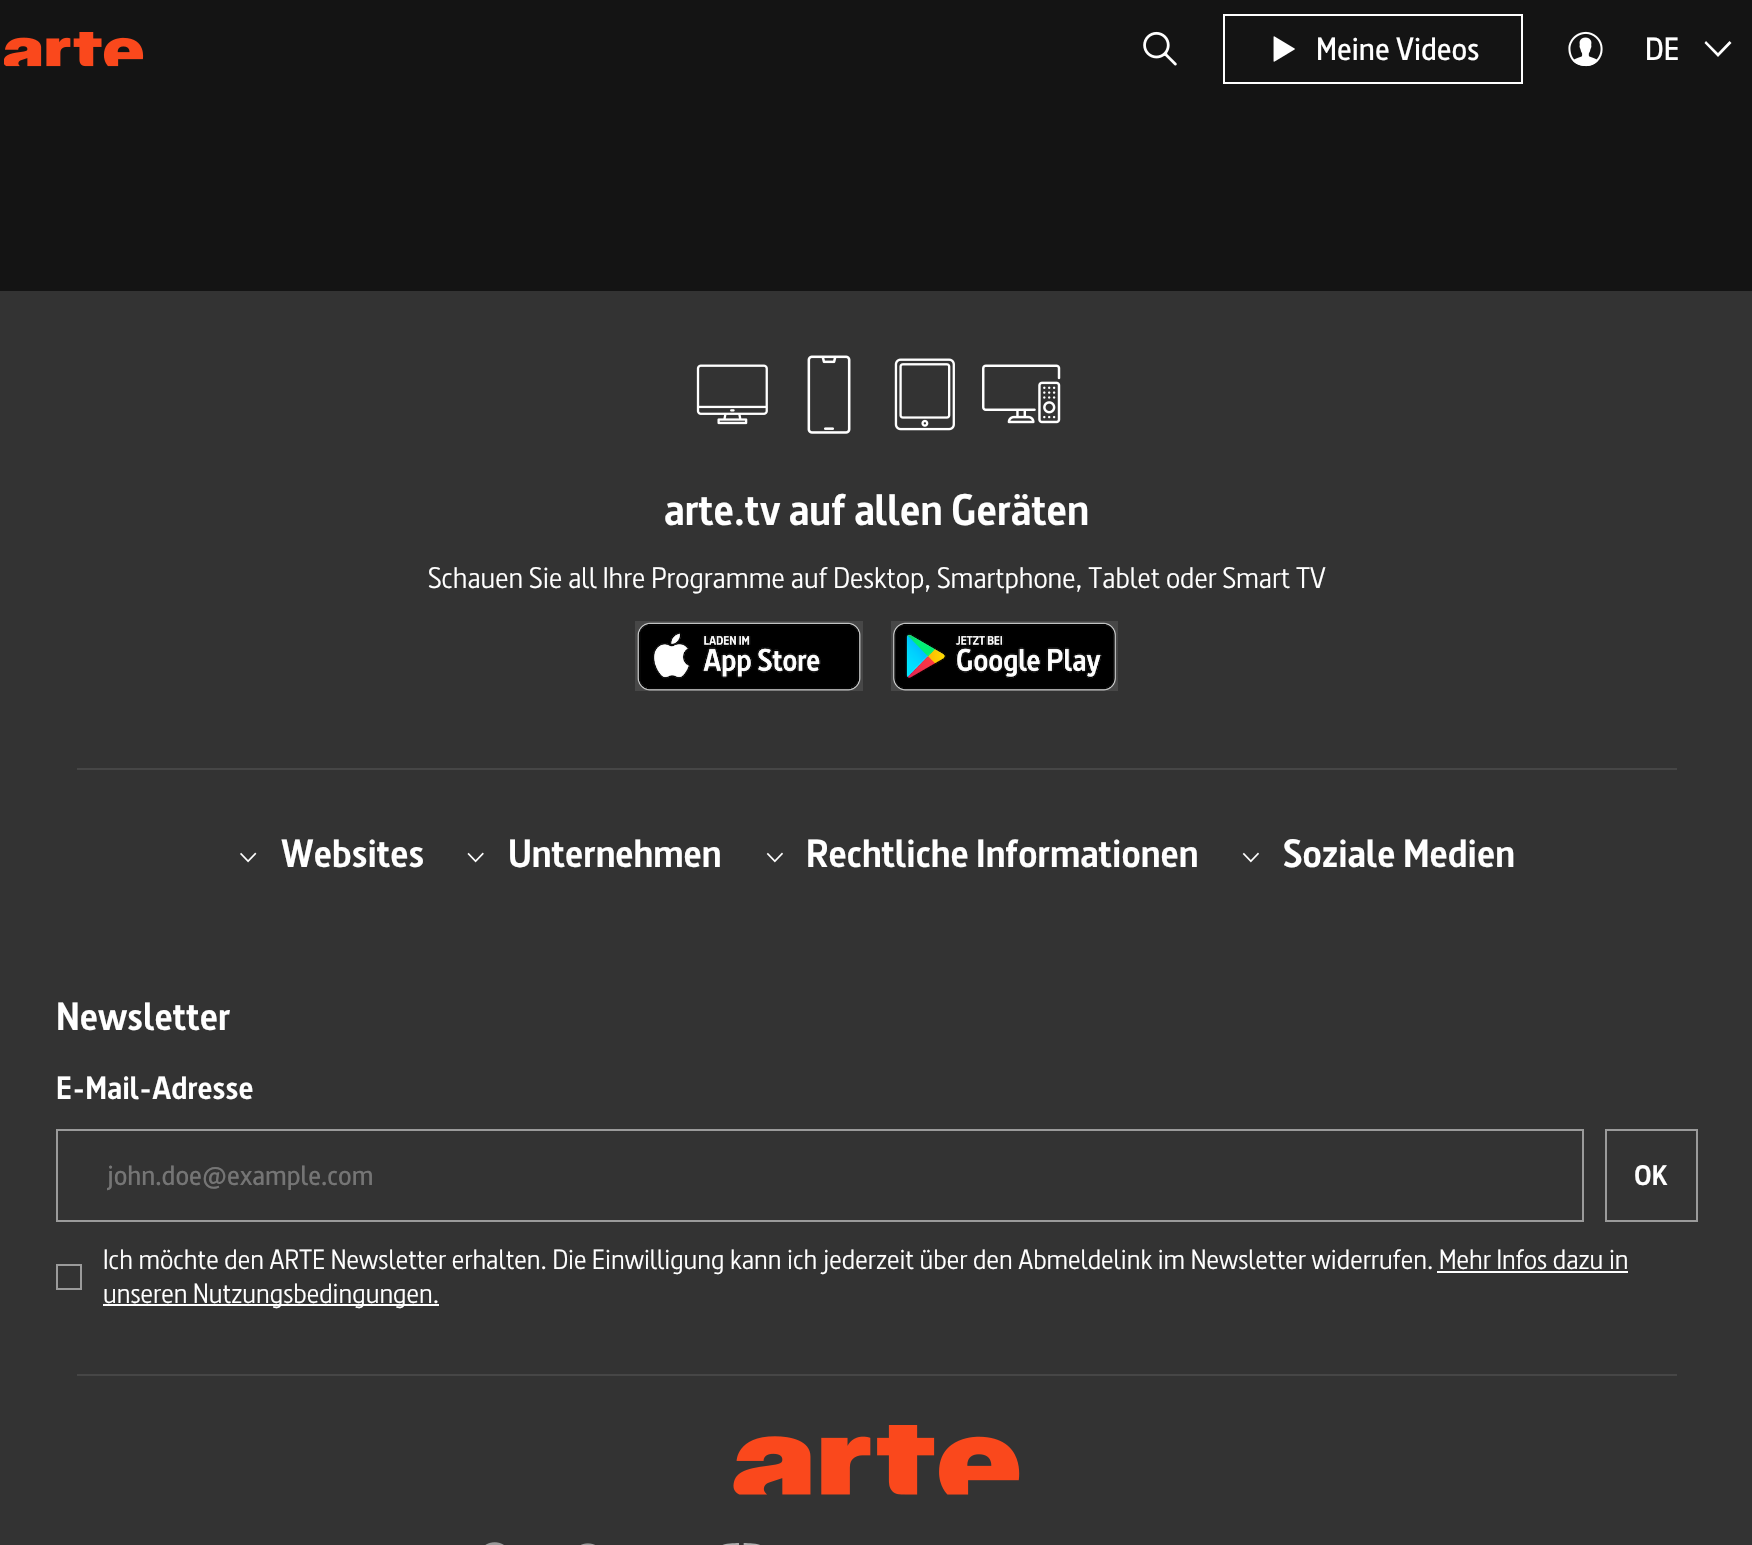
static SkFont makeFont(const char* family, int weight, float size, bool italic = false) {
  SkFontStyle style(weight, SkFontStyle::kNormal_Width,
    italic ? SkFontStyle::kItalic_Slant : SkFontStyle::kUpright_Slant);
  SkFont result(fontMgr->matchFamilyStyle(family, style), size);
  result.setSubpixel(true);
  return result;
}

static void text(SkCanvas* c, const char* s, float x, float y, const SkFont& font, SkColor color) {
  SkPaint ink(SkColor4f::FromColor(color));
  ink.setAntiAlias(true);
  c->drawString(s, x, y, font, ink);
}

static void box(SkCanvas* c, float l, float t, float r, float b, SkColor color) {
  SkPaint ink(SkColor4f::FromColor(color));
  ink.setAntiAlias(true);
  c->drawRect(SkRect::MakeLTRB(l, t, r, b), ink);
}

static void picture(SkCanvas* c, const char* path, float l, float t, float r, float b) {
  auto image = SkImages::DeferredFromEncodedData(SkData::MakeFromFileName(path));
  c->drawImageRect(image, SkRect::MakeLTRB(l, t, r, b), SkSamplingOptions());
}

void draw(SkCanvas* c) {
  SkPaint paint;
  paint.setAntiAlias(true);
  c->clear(0xff141414);
  picture(c, "img_01.png", 4, 32, 144, 67);
  picture(c, "img_02.png", 1143, 31, 1177, 66);
  paint.setStyle(SkPaint::kStroke_Style);
  paint.setStrokeWidth(2);
  paint.setColor(0xffffffff);
  c->drawRect(SkRect::MakeLTRB(1224, 15, 1522, 83), paint);
  picture(c, "img_03.png", 1273, 36, 1295, 62);
  SkFont face1 = makeFont("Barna", 600, 32);
  text(c, "Meine Videos", 1316, 60, face1, 0xffffffff);
  picture(c, "img_04.png", 1568, 31, 1603, 67);
  text(c, "DE", 1645, 60, face1, 0xffffffff);
  paint.setStyle(SkPaint::kFill_Style);
  c->drawPath(SkPathBuilder(SkPathFillType::kEvenOdd).moveTo(1731.5f, 43).lineTo(1729.5f, 41).lineTo(1718, 53).lineTo(1706, 41).lineTo(1704.5f, 43).lineTo(1718, 57).close().detach(), paint);
  box(c, 0, 291, 1752, 1545, 0xff333333);
  picture(c, "img_05.png", 696, 364, 768, 425);
  picture(c, "img_06.png", 807, 355, 851, 434);
  picture(c, "img_07.png", 894, 358, 955, 431);
  picture(c, "img_08.png", 982, 364, 1061, 424);
  SkFont face2 = makeFont("Barna", 700, 43.75f);
  text(c, "arte.tv auf allen Geräten", 664, 525, face2, 0xffffffff);
  SkFont face3 = makeFont("Barna", 400, 29.75f);
  text(c, "Schauen Sie all Ihre Programme auf Desktop, Smartphone, Tablet oder Smart TV", 428, 588, face3, 0xffffffff);
  box(c, 635, 621, 863, 691, 0xff474747);
  picture(c, "img_09.png", 637, 622, 861, 691);
  box(c, 891, 621, 1118, 691, 0xff474747);
  picture(c, "img_10.png", 893, 622, 1116, 691);
  box(c, 77, 768, 1677, 770, 0xff464646);
  picture(c, "img_11.png", 240, 852, 257, 863);
  SkFont face4 = makeFont("Barna", 700, 39);
  text(c, "Websites", 281, 867, face4, 0xffffffff);
  picture(c, "img_12.png", 467, 852, 484, 863);
  text(c, "Unternehmen", 508, 867, face4, 0xffffffff);
  picture(c, "img_13.png", 766, 852, 783, 863);
  text(c, "Rechtliche Informationen", 806, 867, face4, 0xffffffff);
  picture(c, "img_13.png", 1242, 852, 1259, 863);
  text(c, "Soziale Medien", 1283, 867, face4, 0xffffffff);
  text(c, "Newsletter", 56, 1030, face4, 0xffffffff);
  SkFont face5 = makeFont("Barna", 700, 32);
  text(c, "E-Mail-Adresse", 56, 1099, face5, 0xffffffff);
  paint.setStyle(SkPaint::kStroke_Style);
  paint.setColor(0xff9b9b9b);
  c->drawRect(SkRect::MakeLTRB(57, 1130, 1583, 1221), paint);
  c->save();
  c->clipRect(SkRect::MakeLTRB(107, 1157, 1533, 1194));
  SkFont face6 = makeFont("Barna", 600, 27.9f);
  text(c, "john.doe@example.com", 107, 1185, face6, 0xff757575);
  c->restore();
  c->drawRect(SkRect::MakeLTRB(1606, 1130, 1697, 1221), paint);
  SkFont face7 = makeFont("Barna", 700, 27.9f);
  text(c, "OK", 1634, 1185, face7, 0xffffffff);
  c->drawRect(SkRect::MakeLTRB(57, 1265, 81, 1289), paint);
  SkFont face8 = makeFont("Barna", 400, 27.9f);
  text(c, "Ich möchte den ARTE Newsletter erhalten. Die Einwilligung kann ich jederzeit über den Abmeldelink im Newsletter widerrufen. Mehr Infos dazu in", 103, 1269, face8, 0xffffffff);
  box(c, 103, 1304, 439, 1306, 0xffffffff);
  text(c, "unseren Nutzungsbedingungen.", 103, 1303, face8, 0xffffffff);
  box(c, 1437, 1271, 1628, 1273, 0xffffffff);
  box(c, 77, 1374, 1677, 1376, 0xff464646);
  picture(c, "img_14.png", 733, 1425, 1020, 1495);
  picture(c, "img_15.png", 485, 1542, 504, 1545);
  picture(c, "img_16.png", 581, 1543, 595, 1545);
  picture(c, "img_17.png", 722, 1543, 760, 1545);
}
